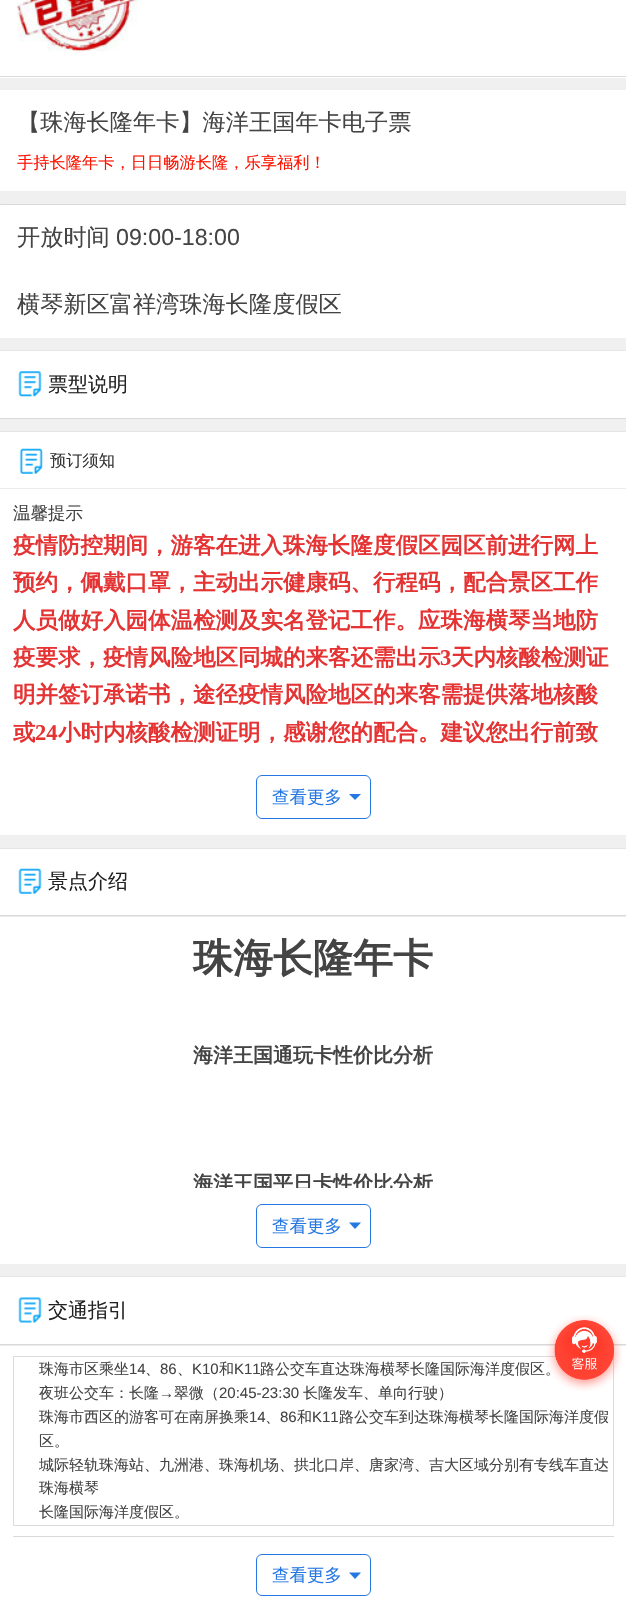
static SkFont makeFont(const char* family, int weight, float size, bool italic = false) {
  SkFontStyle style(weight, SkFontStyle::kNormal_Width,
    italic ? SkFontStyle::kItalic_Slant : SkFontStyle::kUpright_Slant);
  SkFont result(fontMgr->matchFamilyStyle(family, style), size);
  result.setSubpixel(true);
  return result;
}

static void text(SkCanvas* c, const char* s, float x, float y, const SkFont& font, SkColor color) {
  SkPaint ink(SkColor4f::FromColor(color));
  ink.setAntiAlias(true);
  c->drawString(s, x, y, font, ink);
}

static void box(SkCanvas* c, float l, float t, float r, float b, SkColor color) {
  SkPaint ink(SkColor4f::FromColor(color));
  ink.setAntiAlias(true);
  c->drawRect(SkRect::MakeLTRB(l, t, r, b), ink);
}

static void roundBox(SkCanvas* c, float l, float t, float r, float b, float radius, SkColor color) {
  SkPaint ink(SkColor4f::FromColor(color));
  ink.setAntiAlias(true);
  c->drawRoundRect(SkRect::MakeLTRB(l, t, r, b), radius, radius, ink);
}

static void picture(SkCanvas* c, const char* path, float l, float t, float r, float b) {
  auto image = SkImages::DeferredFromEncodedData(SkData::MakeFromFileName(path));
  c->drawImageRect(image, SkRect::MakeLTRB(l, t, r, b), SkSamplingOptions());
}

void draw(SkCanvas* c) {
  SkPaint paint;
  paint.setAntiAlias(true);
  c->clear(0xfff0f0f0);
  box(c, 0, 0, 626, 78, 0xffffffff);
  picture(c, "img_01.png", 17, 0, 143, 52);
  roundBox(c, 0, 76, 626, 77, 0.5f, 0xffd9d9d9);
  box(c, 0, 90, 626, 191, 0xffffffff);
  SkFont face1 = makeFont("WenQuanYi Zen Hei", 500, 23.2f);
  text(c, "【珠海长隆年卡】海洋王国年卡电子票", 17, 130, face1, 0xff444444);
  SkFont face2 = makeFont("WenQuanYi Zen Hei", 500, 16.25f);
  text(c, "手持长隆年卡，日日畅游长隆，乐享福利！", 17, 168, face2, 0xffff1200);
  box(c, 0, 204, 626, 338, 0xffffffff);
  roundBox(c, 0, 204, 626, 205, 0.5f, 0xffd9d9d9);
  text(c, "开放时间", 17, 245, face1, 0xff444444);
  SkFont face3 = makeFont("Liberation Sans", 400, 23.2f);
  text(c, "09:00-18:00", 116, 245, face3, 0xff444444);
  text(c, "横琴新区富祥湾珠海长隆度假区", 17, 312, face1, 0xff444444);
  box(c, 0, 350, 626, 418, 0xffffffff);
  roundBox(c, 0, 350, 626, 351, 0.5f, 0xffe5e5e5);
  box(c, 0, 418, 626, 419, 0xffd9d9d9);
  picture(c, "img_02.png", 18, 371, 42, 397);
  SkFont face4 = makeFont("WenQuanYi Zen Hei", 500, 20);
  text(c, "票型说明", 48, 391, face4, 0xff222222);
  box(c, 0, 431, 626, 835, 0xffffffff);
  roundBox(c, 0, 431, 626, 432, 0.5f, 0xffe5e5e5);
  picture(c, "img_03.png", 19, 448, 43, 474);
  text(c, "预订须知", 50, 466, face2, 0xff333333);
  box(c, 0, 488, 626, 489, 0xffececec);
  SkFont face5 = makeFont("WenQuanYi Zen Hei", 500, 17.5f);
  text(c, "温馨提示", 13, 519, face5, 0xff444444);
  SkFont face6 = makeFont("WenQuanYi Zen Hei", 700, 22.5f);
  text(c, "疫情防控期间，游客在进入珠海长隆度假区园区前进行网上", 13, 553, face6, 0xffe53333);
  c->save();
  c->clipRect(SkRect::MakeLTRB(13, 526, 614, 759));
  text(c, "预约，佩戴口罩，主动出示健康码、行程码，配合景区工作", 13, 590, face6, 0xffe53333);
  c->restore();
  text(c, "人员做好入园体温检测及实名登记工作。应珠海横琴当地防", 13, 628, face6, 0xffe53333);
  text(c, "疫要求，疫情风险地区同城的来客还需出示", 13, 665, face6, 0xffe53333);
  SkFont face7 = makeFont("Liberation Serif", 700, 22.5f);
  text(c, "3", 440, 665, face7, 0xffe53333);
  text(c, "天内核酸检测证", 451, 665, face6, 0xffe53333);
  text(c, "明并签订承诺书，途径疫情风险地区的来客需提供落地核酸", 13, 702, face6, 0xffe53333);
  text(c, "或", 13, 740, face6, 0xffe53333);
  text(c, "24", 35, 740, face7, 0xffe53333);
  text(c, "小时内核酸检测证明，感谢您的配合。建议您出行前致", 58, 740, face6, 0xffe53333);
  paint.setStyle(SkPaint::kStroke_Style);
  paint.setStrokeWidth(1);
  paint.setColor(0xff2577e3);
  c->drawRoundRect(SkRect::MakeLTRB(256.5f, 775.5f, 370.5f, 818.5f), 5.5f, 5.5f, paint);
  text(c, "查看更多", 272, 803, face5, 0xff2577e3);
  paint.setStyle(SkPaint::kFill_Style);
  c->drawPath(SkPathBuilder().moveTo(349, 794).lineTo(361, 794).lineTo(355, 800).close().detach(), paint);
  box(c, 0, 848, 626, 1264, 0xffffffff);
  roundBox(c, 0, 848, 626, 849, 0.5f, 0xffe5e5e5);
  box(c, 0, 915, 626, 916, 0xffd9d9d9);
  picture(c, "img_04.png", 18, 868, 42, 894);
  text(c, "景点介绍", 48, 888, face4, 0xff222222);
  box(c, 0, 916, 626, 917, 0xffececec);
  SkFont face8 = makeFont("WenQuanYi Zen Hei", 700, 40);
  text(c, "珠海长隆年卡", 193, 972, face8, 0xff444444);
  SkFont face9 = makeFont("WenQuanYi Zen Hei", 700, 20);
  text(c, "海洋王国通玩卡性价比分析", 193, 1062, face9, 0xff444444);
  c->save();
  c->clipRect(SkRect::MakeLTRB(0, 918, 626, 1188));
  text(c, "海洋王国平日卡性价比分析", 193, 1190, face9, 0xff444444);
  c->restore();
  paint.setStyle(SkPaint::kStroke_Style);
  c->drawRoundRect(SkRect::MakeLTRB(256.5f, 1204.5f, 370.5f, 1247.5f), 5.5f, 5.5f, paint);
  text(c, "查看更多", 272, 1232, face5, 0xff2577e3);
  paint.setStyle(SkPaint::kFill_Style);
  c->drawPath(SkPathBuilder().moveTo(349, 1222.5f).lineTo(361, 1222.5f).lineTo(355, 1229).close().detach(), paint);
  box(c, 0, 1276, 626, 1611, 0xffffffff);
  roundBox(c, 0, 1276, 626, 1277, 0.5f, 0xffe5e5e5);
  box(c, 0, 1344, 626, 1345, 0xffd9d9d9);
  picture(c, "img_05.png", 18, 1297, 42, 1323);
  text(c, "交通指引", 48, 1317, face4, 0xff222222);
  box(c, 0, 1345, 626, 1346, 0xffececec);
  paint.setStyle(SkPaint::kStroke_Style);
  paint.setColor(0xffdcdcdc);
  c->drawRect(SkRect::MakeLTRB(13.5f, 1356.5f, 613.5f, 1525.5f), paint);
  SkFont face10 = makeFont("WenQuanYi Zen Hei", 500, 15);
  text(c, "珠海市区乘坐", 39, 1374, face10, 0xff444444);
  SkFont face11 = makeFont("Liberation Sans", 400, 15);
  text(c, "14", 129, 1374, face11, 0xff444444);
  text(c, "、", 145, 1374, face10, 0xff444444);
  text(c, "86", 160, 1374, face11, 0xff444444);
  text(c, "、", 177, 1374, face10, 0xff444444);
  text(c, "K10", 192, 1374, face11, 0xff444444);
  text(c, "和", 219, 1374, face10, 0xff444444);
  text(c, "K11", 234, 1374, face11, 0xff444444);
  text(c, "路公交车直达珠海横琴长隆国际海洋度假区。", 260, 1374, face10, 0xff444444);
  text(c, "夜班公交车：长隆", 39, 1398, face10, 0xff444444);
  text(c, "→", 159, 1398, face11, 0xff444444);
  text(c, "翠微（", 174, 1398, face10, 0xff444444);
  text(c, "20:45-23:30", 219, 1398, face11, 0xff444444);
  text(c, "长隆发车、单向行驶）", 303, 1398, face10, 0xff444444);
  text(c, "珠海市西区的游客可在南屏换乘", 39, 1422, face10, 0xff444444);
  text(c, "14", 249, 1422, face11, 0xff444444);
  text(c, "、", 265, 1422, face10, 0xff444444);
  text(c, "86", 280, 1422, face11, 0xff444444);
  text(c, "和", 297, 1422, face10, 0xff444444);
  text(c, "K11", 312, 1422, face11, 0xff444444);
  text(c, "路公交车到达珠海横琴长隆国际海洋度假", 339, 1422, face10, 0xff444444);
  text(c, "区。", 39, 1446, face10, 0xff444444);
  text(c, "城际轻轨珠海站、九洲港、珠海机场、拱北口岸、唐家湾、吉大区域分别有专线车直达", 39, 1470, face10, 0xff444444);
  text(c, "珠海横琴", 39, 1493, face10, 0xff444444);
  text(c, "长隆国际海洋度假区。", 39, 1517, face10, 0xff444444);
  roundBox(c, 13, 1536, 614, 1537, 0.5f, 0xffd9d9d9);
  paint.setColor(0xff2577e3);
  c->drawRoundRect(SkRect::MakeLTRB(256.5f, 1554.5f, 370.5f, 1595.5f), 5.5f, 5.5f, paint);
  text(c, "查看更多", 272, 1581, face5, 0xff2577e3);
  paint.setStyle(SkPaint::kFill_Style);
  c->drawPath(SkPathBuilder().moveTo(349, 1572.5f).lineTo(361, 1572.5f).lineTo(355, 1579).close().detach(), paint);
  picture(c, "img_06.png", 546, 1315, 622, 1391);
}
